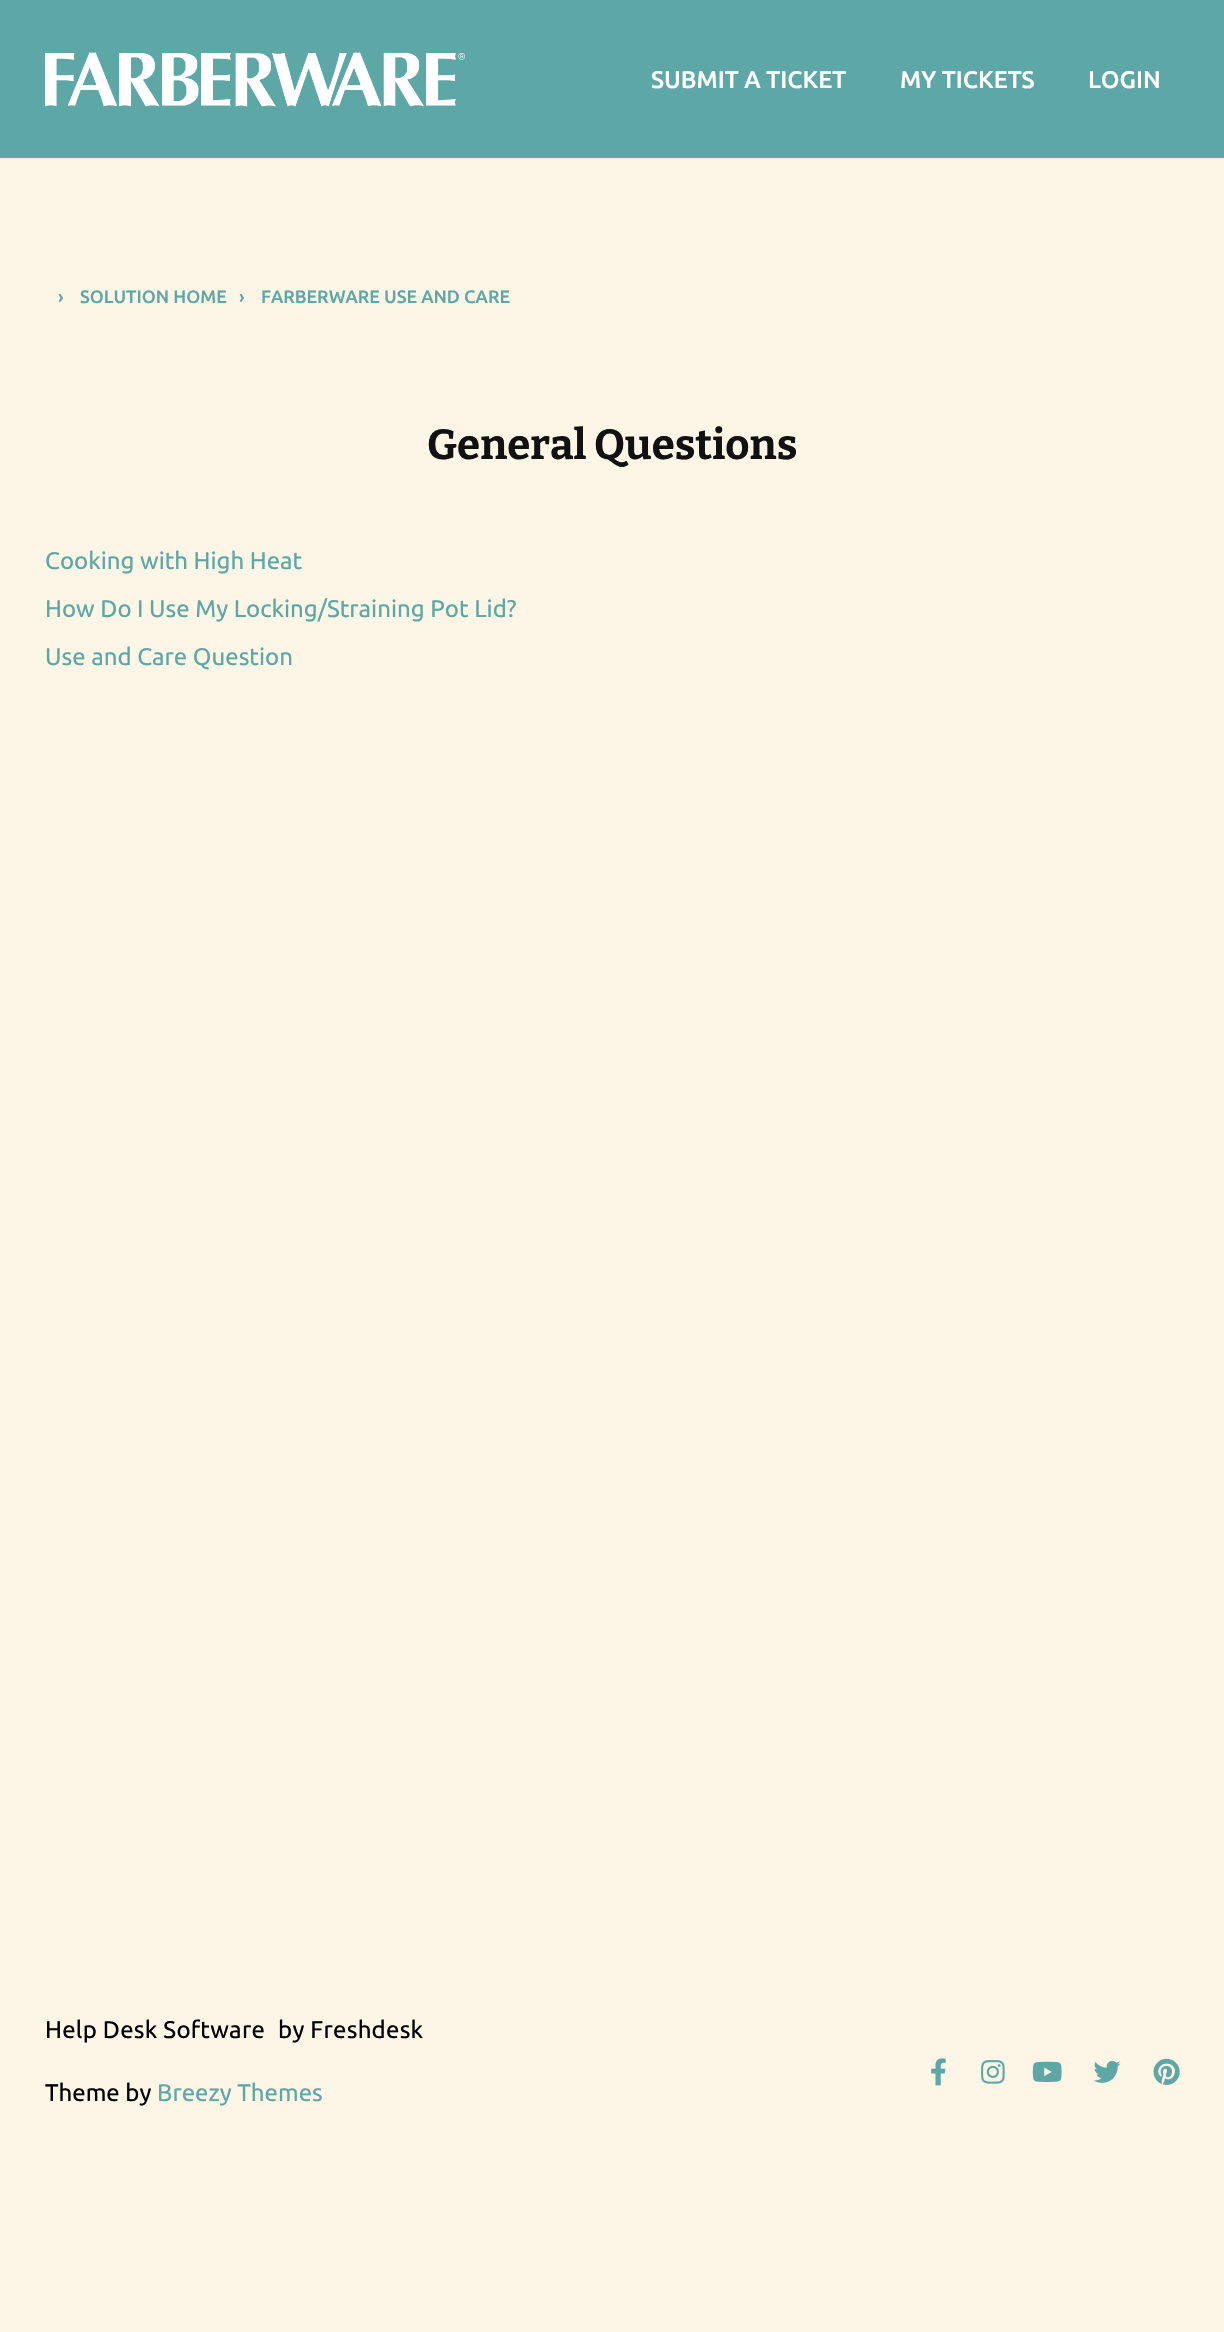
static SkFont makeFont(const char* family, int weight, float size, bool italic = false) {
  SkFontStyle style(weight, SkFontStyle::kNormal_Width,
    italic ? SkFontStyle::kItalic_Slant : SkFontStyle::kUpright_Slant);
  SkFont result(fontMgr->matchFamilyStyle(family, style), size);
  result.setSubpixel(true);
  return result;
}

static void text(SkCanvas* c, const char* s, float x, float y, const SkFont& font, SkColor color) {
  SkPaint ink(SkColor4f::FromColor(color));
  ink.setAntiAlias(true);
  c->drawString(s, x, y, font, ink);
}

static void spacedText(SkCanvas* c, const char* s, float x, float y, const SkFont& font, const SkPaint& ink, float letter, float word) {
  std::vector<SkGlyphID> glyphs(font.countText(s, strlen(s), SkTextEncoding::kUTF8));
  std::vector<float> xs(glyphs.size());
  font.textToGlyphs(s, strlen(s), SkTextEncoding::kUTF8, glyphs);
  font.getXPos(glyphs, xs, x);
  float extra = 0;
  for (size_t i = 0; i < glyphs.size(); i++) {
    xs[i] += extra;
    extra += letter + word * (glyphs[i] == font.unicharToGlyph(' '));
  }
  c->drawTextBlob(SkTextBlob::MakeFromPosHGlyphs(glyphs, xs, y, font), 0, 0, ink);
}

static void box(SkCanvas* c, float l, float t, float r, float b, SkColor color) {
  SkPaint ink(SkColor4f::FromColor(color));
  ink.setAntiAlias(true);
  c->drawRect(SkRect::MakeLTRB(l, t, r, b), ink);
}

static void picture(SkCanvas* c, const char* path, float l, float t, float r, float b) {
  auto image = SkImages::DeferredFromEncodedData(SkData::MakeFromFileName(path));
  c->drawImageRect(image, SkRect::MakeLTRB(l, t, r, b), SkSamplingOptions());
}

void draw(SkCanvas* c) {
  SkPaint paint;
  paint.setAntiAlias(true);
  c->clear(0xfffdf5e6);
  box(c, 0, 0, 1224, 158, 0xff5ea7a7);
  picture(c, "img_01.png", 45, 52, 465, 107);
  SkFont face1 = makeFont("Ubuntu", 500, 24);
  text(c, "SUBMIT A TICKET", 651, 88, face1, 0xffffffff);
  text(c, "MY TICKETS", 900, 88, face1, 0xffffffff);
  text(c, "LOGIN", 1088, 88, face1, 0xffffffff);
  SkFont face2 = makeFont("Ubuntu", 500, 18);
  text(c, "›", 58, 303, face2, 0xff5ea7a7);
  text(c, "SOLUTION HOME", 80, 303, face2, 0xff5ea7a7);
  text(c, "›", 239, 303, face2, 0xff5ea7a7);
  text(c, "FARBERWARE USE AND CARE", 261, 303, face2, 0xff5ea7a7);
  SkFont face3 = makeFont("Bitter", 100, 42);
  text(c, "General Questions", 427, 459, face3, 0xff111111);
  SkFont face4 = makeFont("Ubuntu", 400, 24);
  text(c, "Cooking with High Heat", 45, 569, face4, 0xff5ea7a7);
  text(c, "How Do I Use My Locking/Straining Pot Lid?", 45, 617, face4, 0xff5ea7a7);
  text(c, "Use and Care Question", 45, 665, face4, 0xff5ea7a7);
  paint.setColor(0xff000000);
  spacedText(c, "Help Desk Software", 45, 2038, face4, paint, 0.25f, 0);
  spacedText(c, "by Freshdesk", 278, 2038, face4, paint, 0.25f, 0);
  text(c, "Theme by", 45, 2101, face4, 0xff000000);
  text(c, "Breezy Themes", 157, 2101, face4, 0xff5ea7a7);
  picture(c, "img_02.png", 931, 2058, 946, 2086);
  picture(c, "img_03.png", 981, 2060, 1005, 2084);
  picture(c, "img_04.png", 1032, 2061, 1062, 2082);
  picture(c, "img_05.png", 1093, 2060, 1121, 2083);
  picture(c, "img_06.png", 1153, 2058, 1180, 2085);
}
